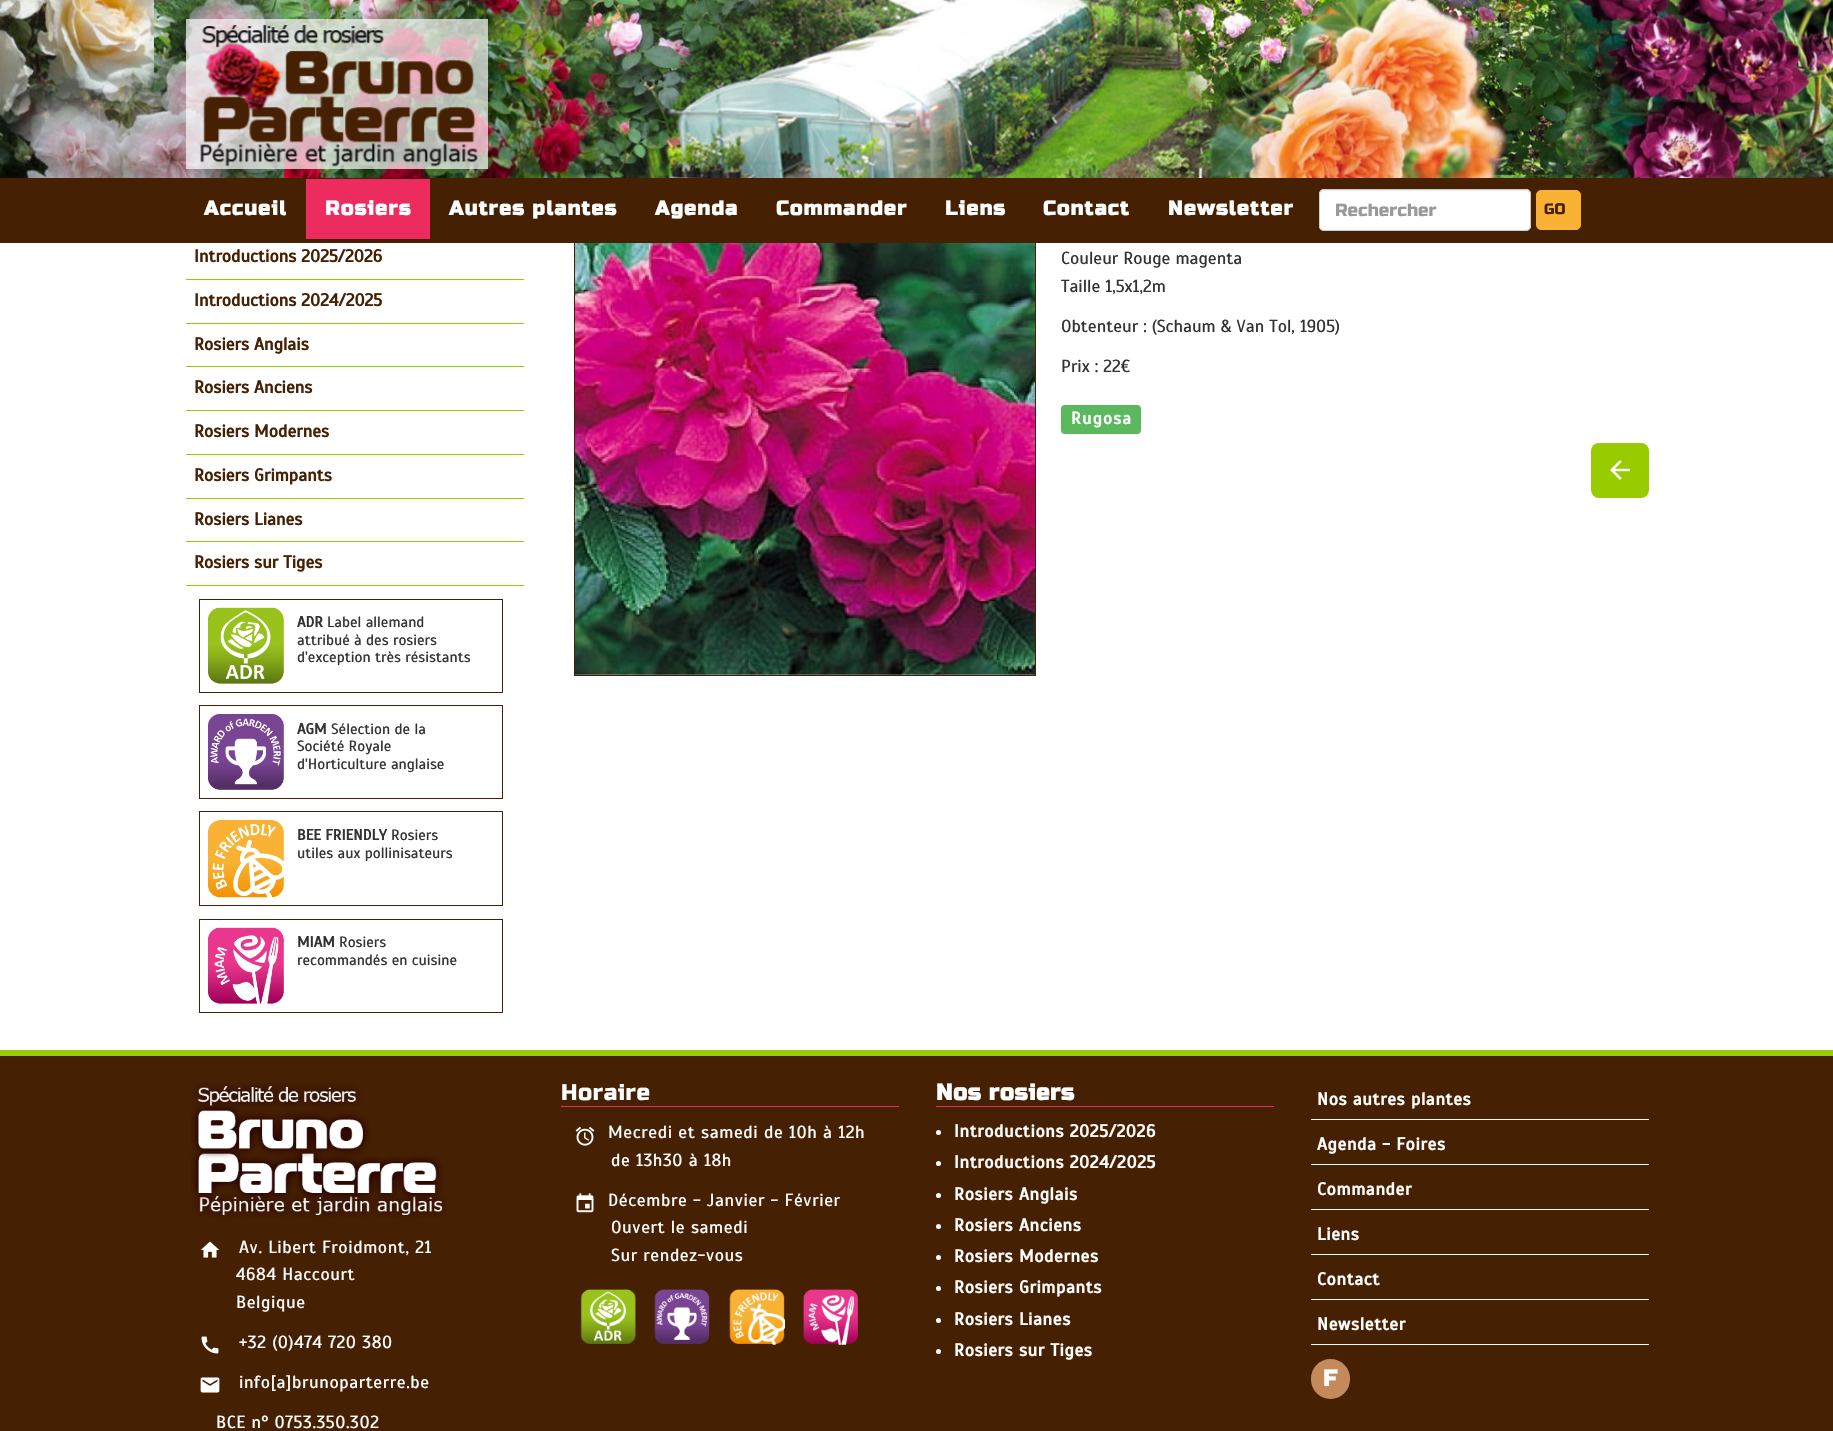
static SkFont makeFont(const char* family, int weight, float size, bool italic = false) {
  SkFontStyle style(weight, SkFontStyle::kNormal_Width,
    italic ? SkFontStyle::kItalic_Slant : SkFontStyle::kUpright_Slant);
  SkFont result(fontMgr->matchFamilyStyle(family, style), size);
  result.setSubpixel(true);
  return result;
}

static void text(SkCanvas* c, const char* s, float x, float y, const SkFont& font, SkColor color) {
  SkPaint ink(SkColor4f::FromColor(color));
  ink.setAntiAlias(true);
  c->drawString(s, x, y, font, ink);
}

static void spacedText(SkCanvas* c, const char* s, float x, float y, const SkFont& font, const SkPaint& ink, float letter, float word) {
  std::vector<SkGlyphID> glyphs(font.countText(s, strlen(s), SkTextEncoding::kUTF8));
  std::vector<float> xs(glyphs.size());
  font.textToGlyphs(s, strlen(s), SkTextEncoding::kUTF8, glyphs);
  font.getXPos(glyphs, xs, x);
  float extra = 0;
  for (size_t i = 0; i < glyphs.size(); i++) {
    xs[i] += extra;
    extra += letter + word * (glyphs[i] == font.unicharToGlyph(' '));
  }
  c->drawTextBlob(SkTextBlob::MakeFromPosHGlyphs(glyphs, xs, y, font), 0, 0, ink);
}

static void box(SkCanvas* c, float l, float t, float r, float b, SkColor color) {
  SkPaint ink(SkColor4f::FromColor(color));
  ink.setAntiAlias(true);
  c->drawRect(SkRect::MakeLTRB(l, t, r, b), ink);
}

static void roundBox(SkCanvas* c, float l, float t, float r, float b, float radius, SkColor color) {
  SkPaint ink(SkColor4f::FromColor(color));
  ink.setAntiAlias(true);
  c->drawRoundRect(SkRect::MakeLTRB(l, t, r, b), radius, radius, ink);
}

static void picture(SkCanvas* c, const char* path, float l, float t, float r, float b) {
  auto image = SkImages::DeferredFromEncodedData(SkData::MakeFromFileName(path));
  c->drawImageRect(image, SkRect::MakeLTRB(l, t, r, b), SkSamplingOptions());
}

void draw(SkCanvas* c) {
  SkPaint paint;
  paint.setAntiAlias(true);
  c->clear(0xffffffff);
  picture(c, "img_01.png", 0, 0, 1833, 178);
  box(c, 186, 19, 488, 169, 0xb3fafafa);
  picture(c, "img_02.png", 200, 25, 478, 167);
  paint.setStyle(SkPaint::kStroke_Style);
  paint.setStrokeWidth(1);
  paint.setColor(0xff462002);
  c->drawRect(SkRect::MakeLTRB(574.5f, 214.5f, 1035.5f, 675.5f), paint);
  box(c, 0, 178, 1833, 243, 0xff462002);
  SkFont face1 = makeFont("Russo One", 700, 20);
  paint.setStyle(SkPaint::kFill_Style);
  paint.setColor(0xffffffff);
  spacedText(c, "Accueil", 204, 215, face1, paint, 1.25f, 0);
  box(c, 306, 179, 430, 239, 0xffec2b5f);
  spacedText(c, "Rosiers", 325, 215, face1, paint, 1.25f, 0);
  spacedText(c, "Autres plantes", 449, 215, face1, paint, 1.25f, 0);
  spacedText(c, "Agenda", 655, 215, face1, paint, 1.25f, 0);
  spacedText(c, "Commander", 776, 215, face1, paint, 1.25f, 0);
  spacedText(c, "Liens", 945, 215, face1, paint, 1.25f, 0);
  spacedText(c, "Contact", 1043, 215, face1, paint, 1.25f, 0);
  spacedText(c, "Newsletter", 1168, 215, face1, paint, 1.25f, 0);
  roundBox(c, 1319, 189, 1531, 231, 5, 0xffffffff);
  paint.setColor(0xffececec);
  c->drawPath(SkPathBuilder().moveTo(1324, 191).lineTo(1526, 191).cubicTo(1528, 191, 1530, 193, 1530, 195).lineTo(1530, 194).cubicTo(1530, 192, 1528, 190, 1526, 190).lineTo(1324, 190).cubicTo(1322, 190, 1320, 192, 1320, 194).lineTo(1320, 195).cubicTo(1320, 193, 1322, 191, 1324, 191).close().detach(), paint);
  paint.setStyle(SkPaint::kStroke_Style);
  paint.setColor(0xffcccccc);
  c->drawRoundRect(SkRect::MakeLTRB(1319.5f, 189.5f, 1530.5f, 230.5f), 4.5f, 4.5f, paint);
  SkFont face2 = makeFont("Russo One", 400, 17.5f);
  text(c, "Rechercher", 1335, 216, face2, 0xff999999);
  paint.setStyle(SkPaint::kFill_Style);
  paint.setColor(0xfff9b233);
  c->drawRoundRect(SkRect::MakeLTRB(1536.5f, 190.5f, 1580.5f, 229.5f), 4.5f, 4.5f, paint);
  paint.setStyle(SkPaint::kStroke_Style);
  c->drawRoundRect(SkRect::MakeLTRB(1536.5f, 190.5f, 1580.5f, 229.5f), 4.5f, 4.5f, paint);
  SkFont face3 = makeFont("Russo One", 400, 15);
  text(c, "GO", 1544, 214, face3, 0xff462002);
  box(c, 186, 279, 524, 280, 0xff99cc00);
  SkFont face4 = makeFont("Scada", 700, 17.5f);
  text(c, "Introductions 2025/2026", 194, 262, face4, 0xff462002);
  box(c, 186, 323, 524, 324, 0xff99cc00);
  text(c, "Introductions 2024/2025", 194, 306, face4, 0xff462002);
  box(c, 186, 366, 524, 367, 0xff99cc00);
  text(c, "Rosiers Anglais", 194, 350, face4, 0xff462002);
  box(c, 186, 410, 524, 411, 0xff99cc00);
  text(c, "Rosiers Anciens", 194, 393, face4, 0xff462002);
  box(c, 186, 454, 524, 455, 0xff99cc00);
  text(c, "Rosiers Modernes", 194, 437, face4, 0xff462002);
  box(c, 186, 498, 524, 499, 0xff99cc00);
  text(c, "Rosiers Grimpants", 194, 481, face4, 0xff462002);
  box(c, 186, 541, 524, 542, 0xff99cc00);
  text(c, "Rosiers Lianes", 194, 525, face4, 0xff462002);
  box(c, 186, 585, 524, 586, 0xff99cc00);
  text(c, "Rosiers sur Tiges", 194, 568, face4, 0xff462002);
  paint.setColor(0xff462002);
  c->drawRect(SkRect::MakeLTRB(199.5f, 599.5f, 502.5f, 692.5f), paint);
  picture(c, "img_03.png", 208, 607, 284, 684);
  SkFont face5 = makeFont("Scada", 700, 15);
  text(c, "ADR", 297, 627, face5, 0xff333333);
  SkFont face6 = makeFont("Scada", 400, 15);
  text(c, "Label allemand", 327, 627, face6, 0xff333333);
  text(c, "attribué à des rosiers", 297, 645, face6, 0xff333333);
  text(c, "d'exception très résistants", 297, 662, face6, 0xff333333);
  c->drawRect(SkRect::MakeLTRB(199.5f, 705.5f, 502.5f, 798.5f), paint);
  picture(c, "img_04.png", 208, 714, 284, 790);
  text(c, "AGM", 297, 734, face5, 0xff333333);
  text(c, "Sélection de la", 331, 734, face6, 0xff333333);
  text(c, "Société Royale", 297, 751, face6, 0xff333333);
  text(c, "d'Horticulture anglaise", 297, 769, face6, 0xff333333);
  c->drawRect(SkRect::MakeLTRB(199.5f, 811.5f, 502.5f, 905.5f), paint);
  picture(c, "img_05.png", 208, 820, 284, 898);
  text(c, "BEE FRIENDLY", 297, 840, face5, 0xff333333);
  text(c, "Rosiers", 391, 840, face6, 0xff333333);
  text(c, "utiles aux pollinisateurs", 297, 858, face6, 0xff333333);
  c->drawRect(SkRect::MakeLTRB(199.5f, 919.5f, 502.5f, 1012.5f), paint);
  picture(c, "img_06.png", 208, 927, 284, 1004);
  text(c, "MIAM", 297, 947, face5, 0xff333333);
  text(c, "Rosiers", 339, 947, face6, 0xff333333);
  text(c, "recommandés en cuisine", 297, 965, face6, 0xff333333);
  picture(c, "img_07.png", 575, 243, 1035, 675);
  SkFont face7 = makeFont("Scada", 400, 17.5f);
  text(c, "Couleur Rouge magenta", 1061, 264, face7, 0xff333333);
  text(c, "Taille 1,5x1,2m", 1061, 292, face7, 0xff333333);
  text(c, "Obtenteur : (Schaum & Van Tol, 1905)", 1061, 332, face7, 0xff333333);
  text(c, "Prix : 22€", 1061, 372, face7, 0xff333333);
  roundBox(c, 1061, 405, 1141, 434, 4, 0xff5cb85c);
  SkFont face8 = makeFont("Scada", 700, 17);
  paint.setStyle(SkPaint::kFill_Style);
  paint.setColor(0xffffffff);
  spacedText(c, "Rugosa", 1071, 424, face8, paint, 1.25f, 0);
  roundBox(c, 1591, 443, 1649, 498, 8, 0xff99cc00);
  picture(c, "img_08.png", 1610, 460, 1630, 480);
  box(c, 0, 1056, 1833, 1431, 0xff462002);
  box(c, 0, 1050, 1833, 1056, 0xff99cc00);
  picture(c, "img_09.png", 191, 1083, 446, 1219);
  picture(c, "img_10.png", 200, 1241, 220, 1258);
  spacedText(c, "Av. Libert Froidmont, 21", 239, 1253, face7, paint, 0.6f, 0);
  spacedText(c, "4684 Haccourt", 236, 1280, face7, paint, 0.6f, 0);
  spacedText(c, "Belgique", 236, 1308, face7, paint, 0.6f, 0);
  picture(c, "img_11.png", 201, 1336, 219, 1354);
  spacedText(c, "+32 (0)474 720 380", 239, 1348, face7, paint, 0.6f, 0);
  picture(c, "img_12.png", 200, 1377, 220, 1393);
  spacedText(c, "info[a]brunoparterre.be", 239, 1388, face7, paint, 0.6f, 0);
  spacedText(c, "BCE n° 0753.350.302", 216, 1428, face7, paint, 0.6f, 0);
  box(c, 561, 1106, 899, 1107, 0xffec2b5f);
  SkFont face9 = makeFont("Russo One", 400, 22.5f);
  spacedText(c, "Horaire", 561, 1100, face9, paint, 0.6f, 0);
  picture(c, "img_13.png", 575, 1126, 595, 1146);
  spacedText(c, "Mecredi et samedi de 10h à 12h", 608, 1138, face7, paint, 0.6f, 0);
  spacedText(c, "de 13h30 à 18h", 611, 1166, face7, paint, 0.6f, 0);
  picture(c, "img_14.png", 576, 1193, 594, 1213);
  spacedText(c, "Décembre - Janvier - Février", 608, 1206, face7, paint, 0.6f, 0);
  spacedText(c, "Ouvert le samedi", 611, 1233, face7, paint, 0.6f, 0);
  spacedText(c, "Sur rendez-vous", 611, 1261, face7, paint, 0.6f, 0);
  picture(c, "img_15.png", 580, 1289, 636, 1344);
  picture(c, "img_16.png", 654, 1289, 710, 1344);
  picture(c, "img_17.png", 729, 1289, 785, 1345);
  picture(c, "img_18.png", 803, 1289, 858, 1345);
  box(c, 936, 1106, 1274, 1107, 0xffec2b5f);
  SkFont face10 = makeFont("Russo One", 700, 22.5f);
  spacedText(c, "Nos rosiers", 936, 1100, face10, paint, 0.6f, 0);
  c->drawCircle(938.5f, 1132.5f, 2.5f, paint);
  spacedText(c, "Introductions 2025/2026", 954, 1137, face4, paint, 0.6f, 0);
  c->drawCircle(938.5f, 1163.5f, 2.5f, paint);
  spacedText(c, "Introductions 2024/2025", 954, 1168, face4, paint, 0.6f, 0);
  c->drawCircle(938.5f, 1195.5f, 2.5f, paint);
  spacedText(c, "Rosiers Anglais", 954, 1200, face4, paint, 0.6f, 0);
  c->drawCircle(938.5f, 1226.5f, 2.5f, paint);
  spacedText(c, "Rosiers Anciens", 954, 1231, face4, paint, 0.6f, 0);
  c->drawCircle(938.5f, 1257.5f, 2.5f, paint);
  spacedText(c, "Rosiers Modernes", 954, 1262, face4, paint, 0.6f, 0);
  c->drawCircle(938.5f, 1288.5f, 2.5f, paint);
  spacedText(c, "Rosiers Grimpants", 954, 1293, face4, paint, 0.6f, 0);
  c->drawCircle(938.5f, 1320.5f, 2.5f, paint);
  spacedText(c, "Rosiers Lianes", 954, 1325, face4, paint, 0.6f, 0);
  c->drawCircle(938.5f, 1351.5f, 2.5f, paint);
  spacedText(c, "Rosiers sur Tiges", 954, 1356, face4, paint, 0.6f, 0);
  box(c, 1311, 1119, 1649, 1120, 0xffffffff);
  spacedText(c, "Nos autres plantes", 1317, 1105, face4, paint, 0.6f, 0);
  box(c, 1311, 1164, 1649, 1165, 0xffffffff);
  spacedText(c, "Agenda - Foires", 1317, 1150, face4, paint, 0.6f, 0);
  box(c, 1311, 1209, 1649, 1210, 0xffffffff);
  spacedText(c, "Commander", 1317, 1195, face4, paint, 0.6f, 0);
  box(c, 1311, 1254, 1649, 1255, 0xffffffff);
  spacedText(c, "Liens", 1317, 1240, face4, paint, 0.6f, 0);
  box(c, 1311, 1299, 1649, 1300, 0xffffffff);
  spacedText(c, "Contact", 1317, 1285, face4, paint, 0.6f, 0);
  box(c, 1311, 1344, 1649, 1345, 0xffffffff);
  spacedText(c, "Newsletter", 1317, 1330, face4, paint, 0.6f, 0);
  roundBox(c, 1311, 1359, 1350, 1399, 19.5f, 0xffc58a5c);
  spacedText(c, "F", 1323, 1386, face10, paint, 0.6f, 0);
}
